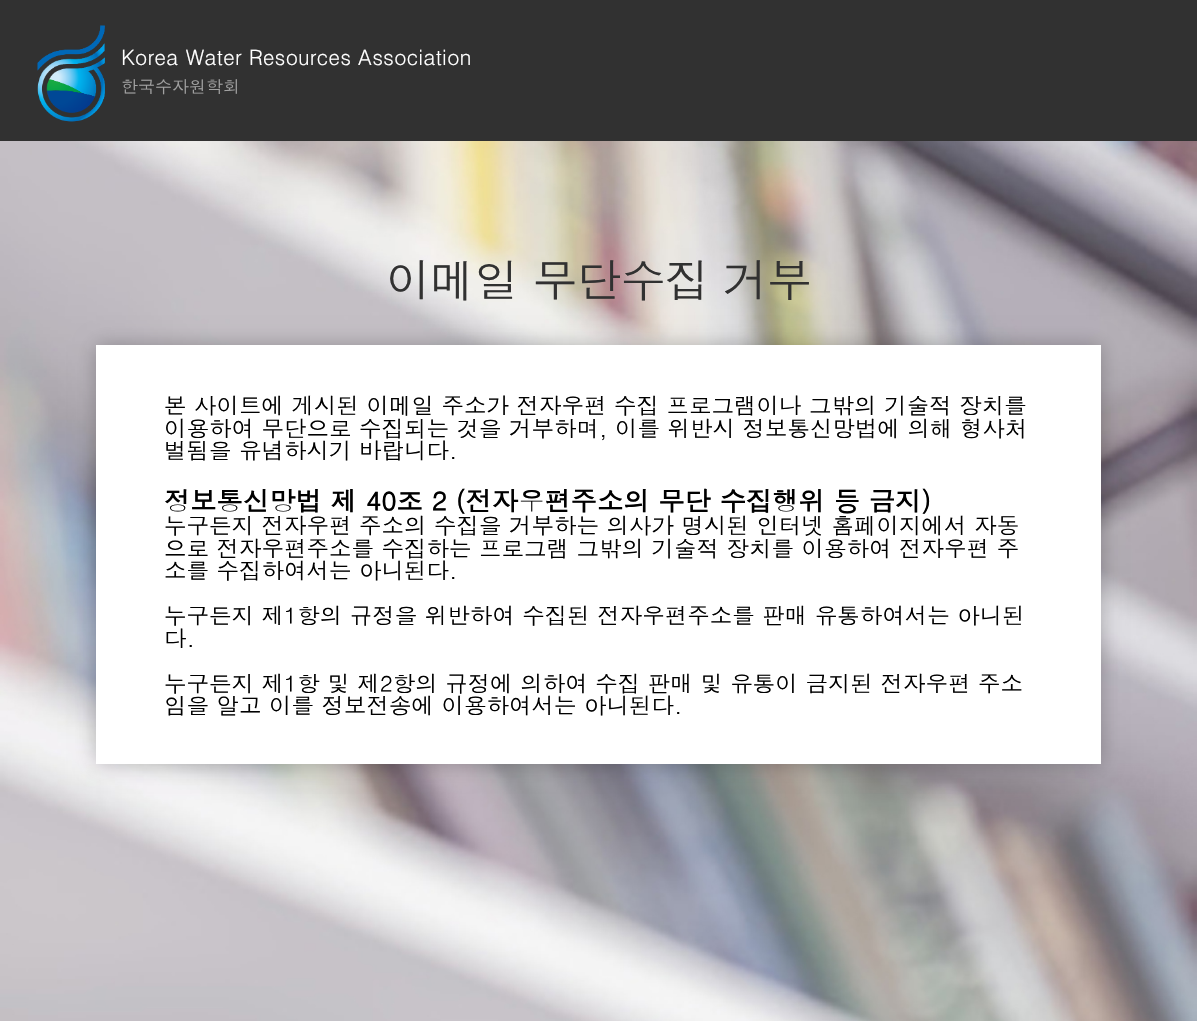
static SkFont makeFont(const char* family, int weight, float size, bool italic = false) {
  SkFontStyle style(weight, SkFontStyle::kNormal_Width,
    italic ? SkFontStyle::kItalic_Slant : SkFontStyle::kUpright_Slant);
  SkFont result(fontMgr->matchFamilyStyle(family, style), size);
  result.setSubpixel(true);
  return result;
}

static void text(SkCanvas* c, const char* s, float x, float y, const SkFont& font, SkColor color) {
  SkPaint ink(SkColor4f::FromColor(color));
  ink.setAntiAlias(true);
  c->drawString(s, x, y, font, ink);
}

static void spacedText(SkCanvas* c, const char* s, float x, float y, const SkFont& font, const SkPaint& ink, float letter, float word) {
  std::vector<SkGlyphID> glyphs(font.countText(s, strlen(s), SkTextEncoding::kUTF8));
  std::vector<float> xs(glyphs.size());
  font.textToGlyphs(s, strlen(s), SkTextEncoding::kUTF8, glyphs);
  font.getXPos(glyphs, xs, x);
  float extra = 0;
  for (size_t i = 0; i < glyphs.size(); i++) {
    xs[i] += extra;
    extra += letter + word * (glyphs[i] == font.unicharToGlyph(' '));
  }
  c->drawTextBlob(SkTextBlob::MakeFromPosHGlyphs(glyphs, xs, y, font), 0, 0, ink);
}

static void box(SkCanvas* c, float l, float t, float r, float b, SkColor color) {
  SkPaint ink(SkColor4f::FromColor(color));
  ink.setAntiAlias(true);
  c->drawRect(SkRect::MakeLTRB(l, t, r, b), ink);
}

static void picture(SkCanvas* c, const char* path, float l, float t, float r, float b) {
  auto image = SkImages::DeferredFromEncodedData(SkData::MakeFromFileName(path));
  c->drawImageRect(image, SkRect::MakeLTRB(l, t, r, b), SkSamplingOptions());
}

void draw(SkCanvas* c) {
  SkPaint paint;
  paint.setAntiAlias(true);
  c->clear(0xffffffff);
  picture(c, "img_01.png", 0, 141, 1197, 1021);
  box(c, 0, 0, 1197, 141, 0xff313131);
  picture(c, "img_02.png", 37, 25, 105, 122);
  SkFont face1 = makeFont("Dotum", 400, 21.1f);
  text(c, "Korea Water Resources Association", 121, 65, face1, 0xffffffff);
  SkFont face2 = makeFont("Dotum", 400, 17);
  text(c, "한국수자원학회", 121, 93, face2, 0xffa2a2a2);
  SkFont face3 = makeFont("Dotum", 400, 45);
  paint.setColor(0xff313131);
  spacedText(c, "이메일 무단수집 거부", 386, 297, face3, paint, -0.9f, 0);
  paint.setColor(0x40000000);
  paint.setMaskFilter(SkMaskFilter::MakeBlur(kNormal_SkBlurStyle, 10));
  c->drawRect(SkRect::MakeLTRB(96, 345, 1101, 764), paint);
  paint.setMaskFilter(nullptr);
  box(c, 96, 345, 1101, 764, 0xffffffff);
  SkFont face4 = makeFont("Dotum", 400, 22.5f);
  text(c, "본 사이트에 게시된 이메일 주소가 전자우편 수집 프로그램이나 그밖의 기술적 장치를", 164, 414, face4, 0xff000000);
  text(c, "이용하여 무단으로 수집되는 것을 거부하며, 이를 위반시 정보통신망법에 의해 형사처", 164, 437, face4, 0xff000000);
  text(c, "벌됨을 유념하시기 바랍니다.", 164, 459, face4, 0xff000000);
  SkFont face5 = makeFont("Dotum", 700, 26.3f);
  text(c, "정보통신망법 제 40조 2 (전자우편주소의 무단 수집행위 등 금지)", 164, 511, face5, 0xff000000);
  text(c, "누구든지 전자우편 주소의 수집을 거부하는 의사가 명시된 인터넷 홈페이지에서 자동", 164, 534, face4, 0xff000000);
  text(c, "으로 전자우편주소를 수집하는 프로그램 그밖의 기술적 장치를 이용하여 전자우편 주", 164, 557, face4, 0xff000000);
  text(c, "소를 수집하여서는 아니된다.", 164, 579, face4, 0xff000000);
  text(c, "누구든지 제1항의 규정을 위반하여 수집된 전자우편주소를 판매 유통하여서는 아니된", 164, 624, face4, 0xff000000);
  text(c, "다.", 164, 647, face4, 0xff000000);
  text(c, "누구든지 제1항 및 제2항의 규정에 의하여 수집 판매 및 유통이 금지된 전자우편 주소", 164, 692, face4, 0xff000000);
  text(c, "임을 알고 이를 정보전송에 이용하여서는 아니된다.", 164, 714, face4, 0xff000000);
}
